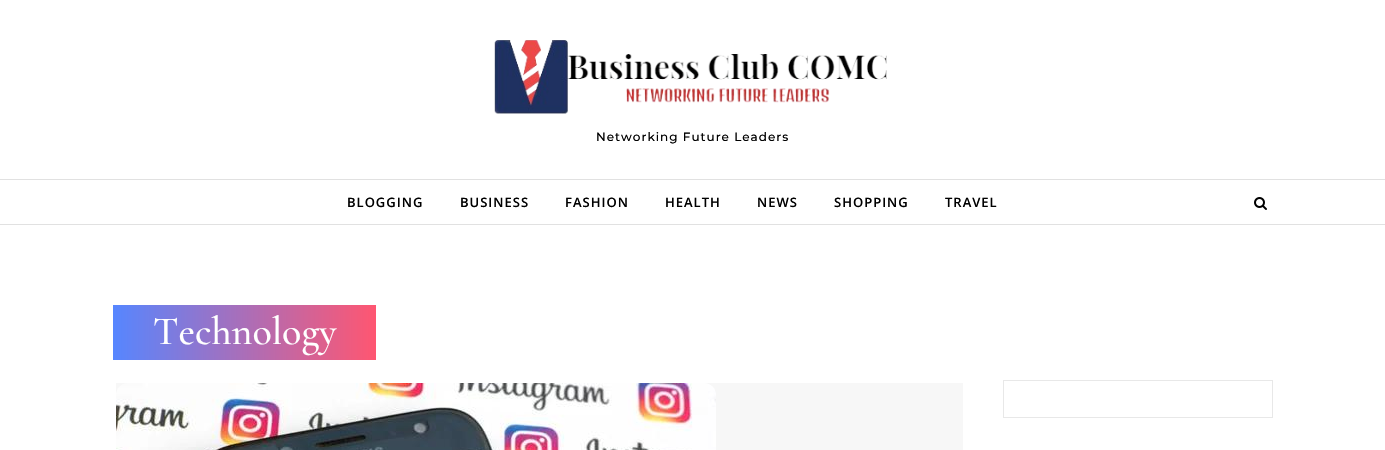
static SkFont makeFont(const char* family, int weight, float size, bool italic = false) {
  SkFontStyle style(weight, SkFontStyle::kNormal_Width,
    italic ? SkFontStyle::kItalic_Slant : SkFontStyle::kUpright_Slant);
  SkFont result(fontMgr->matchFamilyStyle(family, style), size);
  result.setSubpixel(true);
  return result;
}

static void text(SkCanvas* c, const char* s, float x, float y, const SkFont& font, SkColor color) {
  SkPaint ink(SkColor4f::FromColor(color));
  ink.setAntiAlias(true);
  c->drawString(s, x, y, font, ink);
}

static void spacedText(SkCanvas* c, const char* s, float x, float y, const SkFont& font, const SkPaint& ink, float letter, float word) {
  std::vector<SkGlyphID> glyphs(font.countText(s, strlen(s), SkTextEncoding::kUTF8));
  std::vector<float> xs(glyphs.size());
  font.textToGlyphs(s, strlen(s), SkTextEncoding::kUTF8, glyphs);
  font.getXPos(glyphs, xs, x);
  float extra = 0;
  for (size_t i = 0; i < glyphs.size(); i++) {
    xs[i] += extra;
    extra += letter + word * (glyphs[i] == font.unicharToGlyph(' '));
  }
  c->drawTextBlob(SkTextBlob::MakeFromPosHGlyphs(glyphs, xs, y, font), 0, 0, ink);
}

static void box(SkCanvas* c, float l, float t, float r, float b, SkColor color) {
  SkPaint ink(SkColor4f::FromColor(color));
  ink.setAntiAlias(true);
  c->drawRect(SkRect::MakeLTRB(l, t, r, b), ink);
}

static void picture(SkCanvas* c, const char* path, float l, float t, float r, float b) {
  auto image = SkImages::DeferredFromEncodedData(SkData::MakeFromFileName(path));
  c->drawImageRect(image, SkRect::MakeLTRB(l, t, r, b), SkSamplingOptions());
}

void draw(SkCanvas* c) {
  SkPaint paint;
  paint.setAntiAlias(true);
  c->clear(0xffffffff);
  box(c, 0, 179, 1385, 180, 0xffe1e1e1);
  picture(c, "img_01.png", 494, 40, 887, 114);
  SkFont face1 = makeFont("Montserrat", 100, 12);
  paint.setColor(0xff000000);
  spacedText(c, "Networking Future Leaders", 596, 141, face1, paint, 1, 0);
  box(c, 0, 224, 1385, 225, 0xffe1e1e1);
  SkFont face2 = makeFont("Open Sans", 600, 13);
  spacedText(c, "BLOGGING", 347, 207, face2, paint, 1, 0);
  spacedText(c, "BUSINESS", 460, 207, face2, paint, 1, 0);
  spacedText(c, "FASHION", 565, 207, face2, paint, 1, 0);
  spacedText(c, "HEALTH", 665, 207, face2, paint, 1, 0);
  spacedText(c, "NEWS", 757, 207, face2, paint, 1, 0);
  spacedText(c, "SHOPPING", 834, 207, face2, paint, 1, 0);
  spacedText(c, "TRAVEL", 945, 207, face2, paint, 1, 0);
  picture(c, "img_02.png", 1254, 197, 1267, 210);
  {
    const SkColor colors[] = {0xff5686ff, 0xffff5671};
    const float stops[] = {0, 1};
    const SkPoint ends[] = {{113, 333}, {376, 333}};
    paint.setShader(SkGradientShader::MakeLinear(ends, colors, stops, 2, SkTileMode::kClamp));
    paint.setAlpha(255);
  }
  c->drawRect(SkRect::MakeLTRB(113, 305, 376, 360), paint);
  SkFont face3 = makeFont("Cormorant Garamond", 500, 40);
  text(c, "Technology", 153, 344, face3, 0xffffffff);
  box(c, 116, 383, 963, 450, 0xfff7f7f7);
  picture(c, "img_03.png", 116, 383, 716, 450);
  paint.setStyle(SkPaint::kStroke_Style);
  paint.setStrokeWidth(1);
  paint.setShader(nullptr);
  paint.setColor(0xffe8e8e8);
  c->drawRect(SkRect::MakeLTRB(1003.5f, 380.5f, 1272.5f, 417.5f), paint);
}
